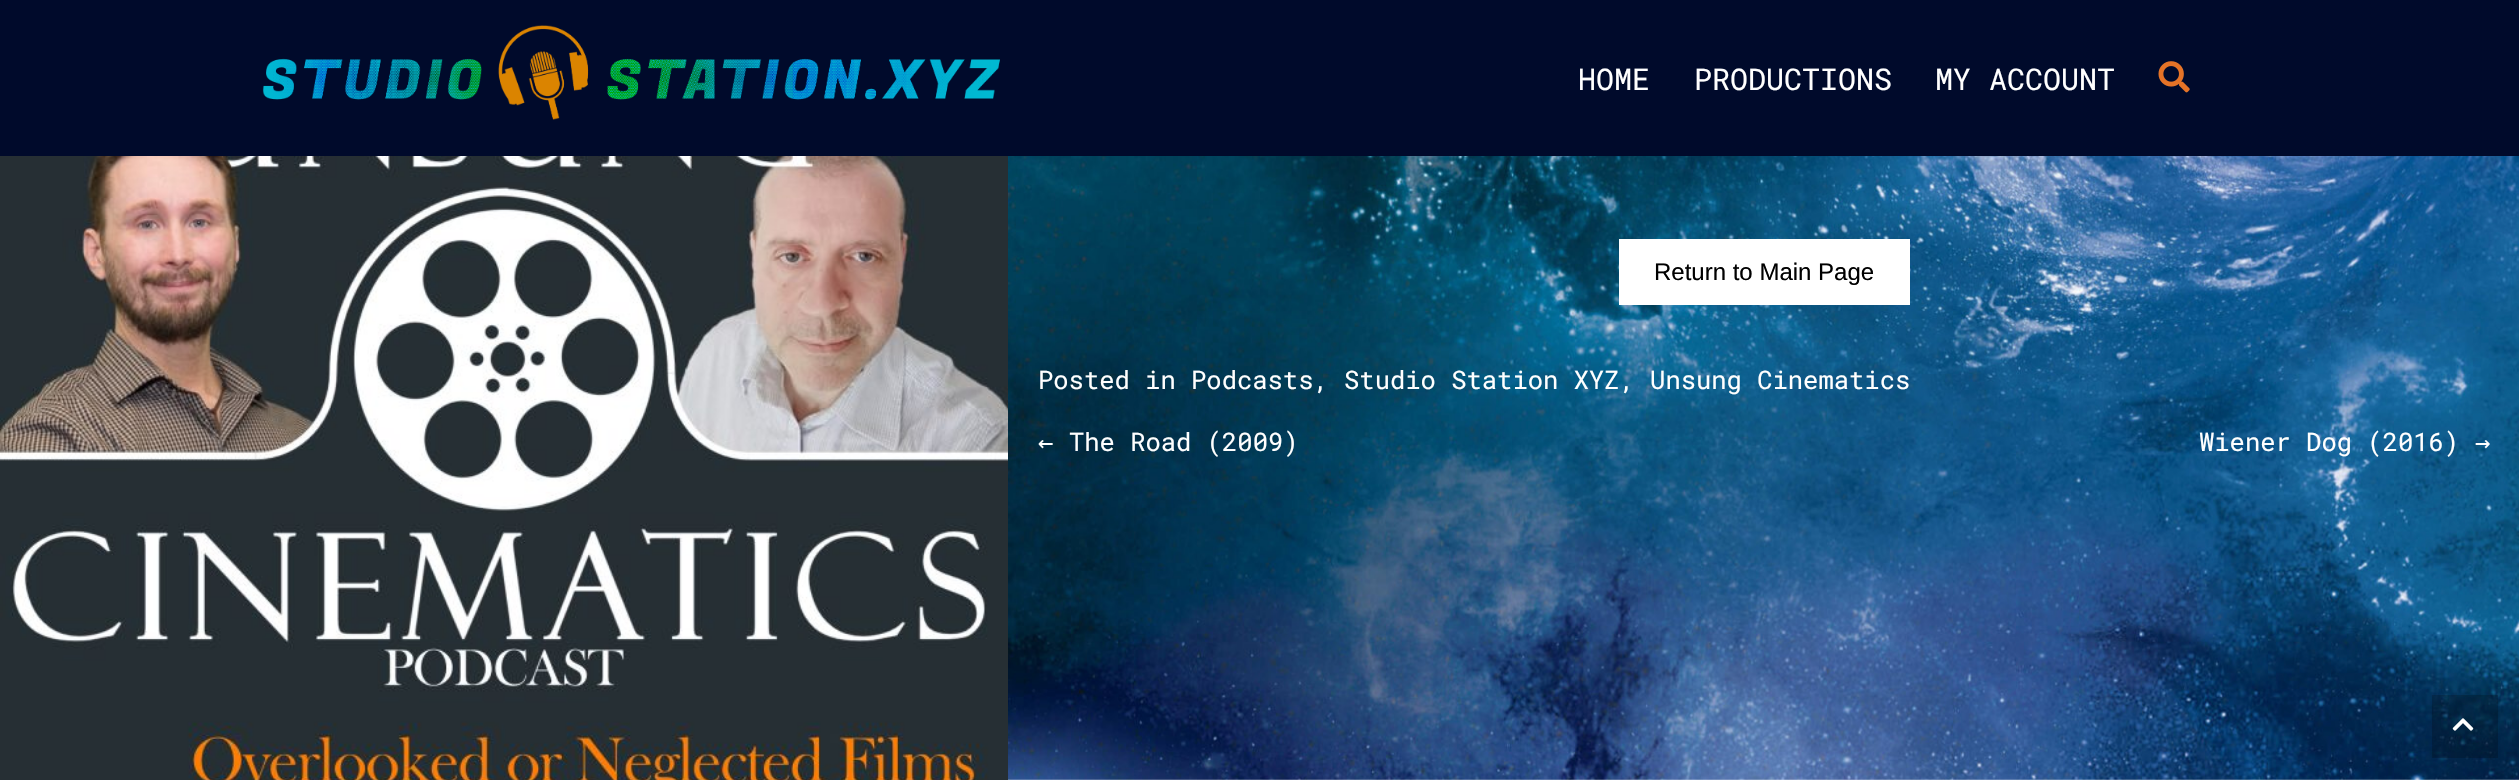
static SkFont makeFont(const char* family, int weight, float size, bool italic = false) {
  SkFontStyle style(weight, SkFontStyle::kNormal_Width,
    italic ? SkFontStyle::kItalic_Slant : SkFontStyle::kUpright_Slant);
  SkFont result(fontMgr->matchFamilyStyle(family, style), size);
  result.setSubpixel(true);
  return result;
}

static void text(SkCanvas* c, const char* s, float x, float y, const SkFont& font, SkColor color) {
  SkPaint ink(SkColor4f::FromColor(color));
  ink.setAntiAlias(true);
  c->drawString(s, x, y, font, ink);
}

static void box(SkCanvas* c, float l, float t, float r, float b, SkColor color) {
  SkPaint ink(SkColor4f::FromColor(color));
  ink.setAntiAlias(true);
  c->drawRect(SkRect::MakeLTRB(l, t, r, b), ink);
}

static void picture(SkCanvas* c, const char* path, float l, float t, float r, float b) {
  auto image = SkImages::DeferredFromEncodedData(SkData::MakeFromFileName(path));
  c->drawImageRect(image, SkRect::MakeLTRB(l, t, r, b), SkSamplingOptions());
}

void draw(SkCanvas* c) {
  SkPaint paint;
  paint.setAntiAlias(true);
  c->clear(0xffffffff);
  box(c, 0, 0, 2519, 156, 0xff000a2b);
  picture(c, "img_01.png", 262, 25, 1000, 120);
  SkFont face1 = makeFont("Roboto Mono", 400, 30);
  text(c, "HOME", 1578, 90, face1, 0xffffffff);
  text(c, "PRODUCTIONS", 1694, 90, face1, 0xffffffff);
  text(c, "MY ACCOUNT", 1935, 90, face1, 0xffffffff);
  picture(c, "img_02.png", 2158, 61, 2190, 93);
  picture(c, "img_03.png", 1008, 156, 2519, 780);
  picture(c, "img_04.png", 0, 156, 1008, 780);
  box(c, 1619, 239, 1910, 305, 0xffffffff);
  SkFont face2 = makeFont("Liberation Sans", 400, 24);
  text(c, "Return to Main Page", 1654, 280, face2, 0xff000000);
  SkFont face3 = makeFont("Roboto Mono", 400, 25.5f);
  text(c, "Posted in Podcasts, Studio Station XYZ, Unsung Cinematics", 1038, 389, face3, 0xffffffff);
  SkFont face4 = makeFont("DejaVu Sans Mono", 400, 25.5f);
  text(c, "←", 1038, 451, face4, 0xffffffff);
  text(c, "The Road (2009)", 1069, 451, face3, 0xffffffff);
  text(c, "Wiener Dog (2016)", 2199, 451, face3, 0xffffffff);
  text(c, "→", 2475, 451, face4, 0xffffffff);
  box(c, 2432, 695, 2498, 758, 0x33000000);
  picture(c, "img_05.png", 2452, 718, 2474, 731);
}
